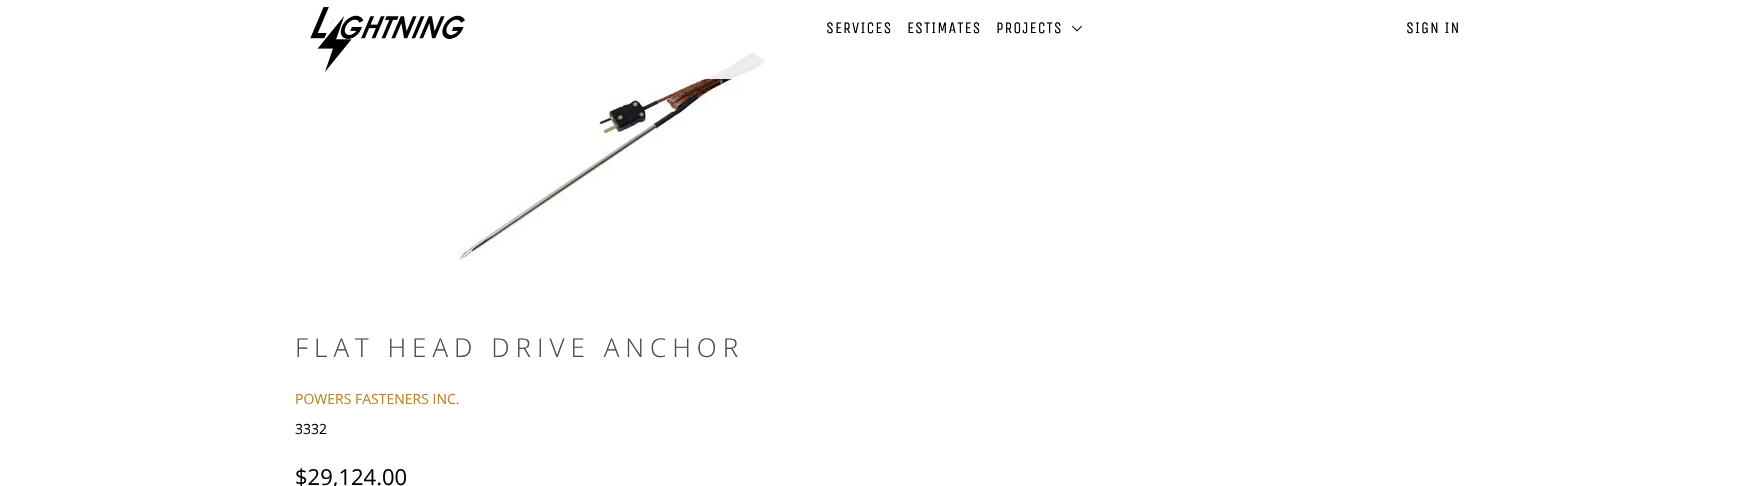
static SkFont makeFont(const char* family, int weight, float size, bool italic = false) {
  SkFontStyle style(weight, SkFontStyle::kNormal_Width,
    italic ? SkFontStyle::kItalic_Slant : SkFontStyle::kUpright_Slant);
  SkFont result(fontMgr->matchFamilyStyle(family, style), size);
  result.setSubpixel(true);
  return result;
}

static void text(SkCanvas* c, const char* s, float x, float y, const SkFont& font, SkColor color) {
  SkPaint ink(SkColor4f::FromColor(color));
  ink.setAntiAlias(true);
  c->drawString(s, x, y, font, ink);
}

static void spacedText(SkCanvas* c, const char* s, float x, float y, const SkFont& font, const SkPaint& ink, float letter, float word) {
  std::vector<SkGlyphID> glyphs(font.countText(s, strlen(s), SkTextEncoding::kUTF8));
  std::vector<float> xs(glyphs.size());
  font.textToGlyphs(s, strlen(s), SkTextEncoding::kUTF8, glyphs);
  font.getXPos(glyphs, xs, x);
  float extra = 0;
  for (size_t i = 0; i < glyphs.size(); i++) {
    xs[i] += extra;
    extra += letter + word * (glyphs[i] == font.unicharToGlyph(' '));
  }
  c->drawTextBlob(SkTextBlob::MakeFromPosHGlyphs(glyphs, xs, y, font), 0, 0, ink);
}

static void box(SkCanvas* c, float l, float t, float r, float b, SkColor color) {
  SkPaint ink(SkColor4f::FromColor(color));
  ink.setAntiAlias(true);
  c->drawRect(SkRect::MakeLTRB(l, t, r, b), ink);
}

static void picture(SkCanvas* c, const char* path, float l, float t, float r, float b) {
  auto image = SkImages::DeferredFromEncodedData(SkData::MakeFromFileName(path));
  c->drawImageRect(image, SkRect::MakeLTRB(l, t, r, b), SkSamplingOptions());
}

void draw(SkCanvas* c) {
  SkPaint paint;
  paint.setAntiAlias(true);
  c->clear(0xffffffff);
  picture(c, "img_03.png", 329, 16, 335, 25);
  picture(c, "img_04.png", 403, 16, 409, 24);
  picture(c, "img_05.png", 456, 46, 772, 262);
  box(c, 329, 16, 772, 79, 0xe6ffffff);
  picture(c, "img_01.png", 310, 7, 465, 72);
  SkFont face1 = makeFont("Unica One", 400, 16);
  paint.setColor(0xff000000);
  spacedText(c, "SERVICES", 826, 33, face1, paint, 1, 0);
  spacedText(c, "ESTIMATES", 907, 33, face1, paint, 1, 0);
  spacedText(c, "PROJECTS", 996, 33, face1, paint, 1, 0);
  picture(c, "img_02.png", 1072, 25, 1082, 32);
  spacedText(c, "SIGN IN", 1406, 33, face1, paint, 1, 0);
  SkFont face2 = makeFont("Open Sans", 300, 26);
  paint.setColor(0xff494c50);
  spacedText(c, "FLAT HEAD DRIVE ANCHOR", 295, 357, face2, paint, 6, 0);
  SkFont face3 = makeFont("Open Sans", 400, 14);
  text(c, "POWERS FASTENERS INC.", 295, 404, face3, 0xffbc8420);
  text(c, "3332", 295, 434, face3, 0xff040506);
  SkFont face4 = makeFont("Open Sans", 400, 22);
  text(c, "$29,124.00", 295, 485, face4, 0xff040506);
}
